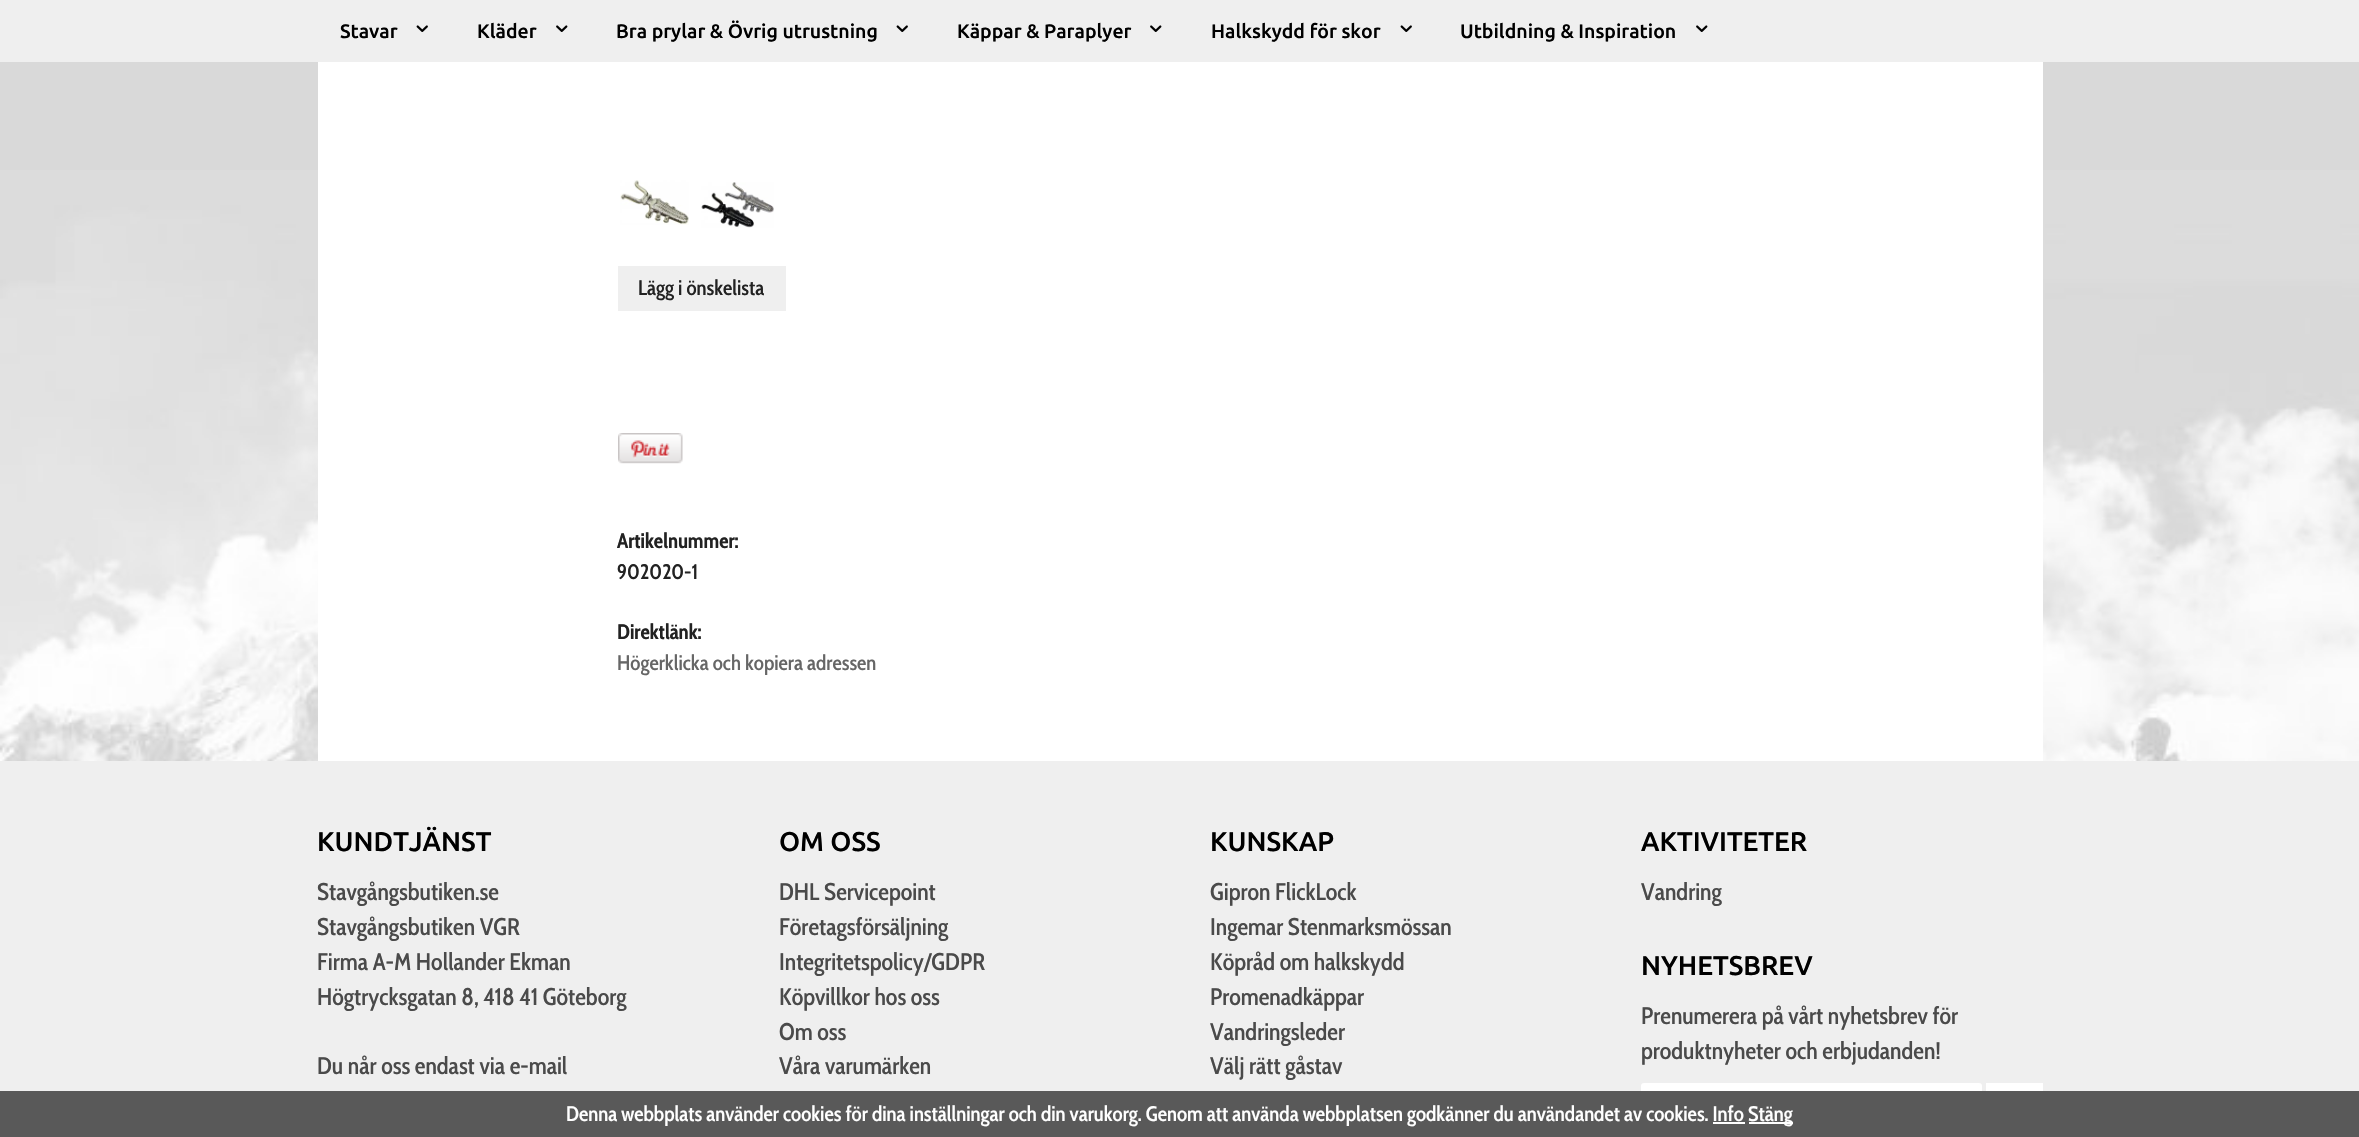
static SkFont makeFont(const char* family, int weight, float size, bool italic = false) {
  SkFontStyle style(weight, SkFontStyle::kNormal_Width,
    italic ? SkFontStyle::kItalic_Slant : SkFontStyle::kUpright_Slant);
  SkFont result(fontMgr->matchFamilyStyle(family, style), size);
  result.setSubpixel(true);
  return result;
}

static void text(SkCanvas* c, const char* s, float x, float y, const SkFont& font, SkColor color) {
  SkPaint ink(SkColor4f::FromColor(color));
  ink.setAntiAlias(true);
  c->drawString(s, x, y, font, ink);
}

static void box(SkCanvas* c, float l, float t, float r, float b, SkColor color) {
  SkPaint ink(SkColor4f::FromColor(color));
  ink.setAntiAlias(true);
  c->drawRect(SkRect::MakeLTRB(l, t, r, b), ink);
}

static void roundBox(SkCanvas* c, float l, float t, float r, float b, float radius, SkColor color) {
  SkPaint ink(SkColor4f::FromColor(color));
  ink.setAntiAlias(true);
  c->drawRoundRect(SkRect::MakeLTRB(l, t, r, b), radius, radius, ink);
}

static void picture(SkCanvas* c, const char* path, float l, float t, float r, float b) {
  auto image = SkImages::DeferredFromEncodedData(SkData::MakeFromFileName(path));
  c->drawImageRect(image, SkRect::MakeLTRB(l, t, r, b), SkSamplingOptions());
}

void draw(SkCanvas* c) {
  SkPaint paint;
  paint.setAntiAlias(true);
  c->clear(0xffd9d9d9);
  picture(c, "img_01.png", 0, 170, 2359, 761);
  box(c, 0, 0, 2359, 62, 0xffefefef);
  SkFont face1 = makeFont("Ubuntu", 500, 19.5f);
  text(c, "Stavar", 340, 38, face1, 0xff000000);
  picture(c, "img_02.png", 416, 25, 428, 32);
  text(c, "Kläder", 477, 38, face1, 0xff000000);
  picture(c, "img_03.png", 556, 25, 568, 32);
  text(c, "Bra prylar & Övrig utrustning", 616, 38, face1, 0xff000000);
  picture(c, "img_02.png", 896, 25, 908, 32);
  text(c, "Käppar & Paraplyer", 957, 38, face1, 0xff000000);
  picture(c, "img_03.png", 1150, 25, 1162, 32);
  text(c, "Halkskydd för skor", 1211, 38, face1, 0xff000000);
  picture(c, "img_02.png", 1400, 25, 1412, 32);
  text(c, "Utbildning & Inspiration", 1460, 38, face1, 0xff000000);
  picture(c, "img_03.png", 1696, 25, 1708, 32);
  box(c, 318, 62, 2043, 761, 0xffffffff);
  picture(c, "img_04.png", 620, 180, 689, 225);
  picture(c, "img_05.png", 701, 182, 774, 228);
  box(c, 618, 266, 786, 311, 0xffefefef);
  SkFont face2 = makeFont("Cabin Condensed", 500, 21);
  text(c, "Lägg i önskelista", 638, 295, face2, 0xff222222);
  picture(c, "img_06.png", 618, 433, 683, 464);
  SkFont face3 = makeFont("Cabin Condensed", 700, 21);
  text(c, "Artikelnummer:", 617, 548, face3, 0xff222222);
  text(c, "902020-1", 617, 579, face2, 0xff222222);
  text(c, "Direktlänk:", 617, 639, face3, 0xff222222);
  text(c, "Högerklicka och kopiera adressen", 617, 670, face2, 0xff666666);
  box(c, 0, 761, 2359, 1091, 0xffefefef);
  SkFont face4 = makeFont("Ubuntu", 500, 27);
  text(c, "KUNDTJÄNST", 317, 851, face4, 0xff000000);
  SkFont face5 = makeFont("Cabin Condensed", 500, 24);
  text(c, "Stavgångsbutiken.se", 317, 900, face5, 0xff4a4a4a);
  text(c, "Stavgångsbutiken VGR", 317, 935, face5, 0xff4a4a4a);
  text(c, "Firma A-M Hollander Ekman", 317, 970, face5, 0xff4a4a4a);
  text(c, "Högtrycksgatan 8, 418 41 Göteborg", 317, 1005, face5, 0xff4a4a4a);
  text(c, "Du når oss endast via e-mail", 317, 1074, face5, 0xff4a4a4a);
  text(c, "OM OSS", 779, 851, face4, 0xff000000);
  text(c, "DHL Servicepoint", 779, 900, face5, 0xff4a4a4a);
  text(c, "Företagsförsäljning", 779, 935, face5, 0xff4a4a4a);
  text(c, "Integritetspolicy/GDPR", 779, 970, face5, 0xff4a4a4a);
  text(c, "Köpvillkor hos oss", 779, 1005, face5, 0xff4a4a4a);
  text(c, "Om oss", 779, 1040, face5, 0xff4a4a4a);
  text(c, "Våra varumärken", 779, 1074, face5, 0xff4a4a4a);
  text(c, "KUNSKAP", 1210, 851, face4, 0xff000000);
  text(c, "Gipron FlickLock", 1210, 900, face5, 0xff4a4a4a);
  text(c, "Ingemar Stenmarksmössan", 1210, 935, face5, 0xff4a4a4a);
  text(c, "Köpråd om halkskydd", 1210, 970, face5, 0xff4a4a4a);
  text(c, "Promenadkäppar", 1210, 1005, face5, 0xff4a4a4a);
  text(c, "Vandringsleder", 1210, 1040, face5, 0xff4a4a4a);
  text(c, "Välj rätt gåstav", 1210, 1074, face5, 0xff4a4a4a);
  text(c, "AKTIVITETER", 1641, 851, face4, 0xff000000);
  text(c, "Vandring", 1641, 900, face5, 0xff4a4a4a);
  text(c, "NYHETSBREV", 1641, 975, face4, 0xff000000);
  text(c, "Prenumerera på vårt nyhetsbrev för", 1641, 1024, face5, 0xff4a4a4a);
  text(c, "produktnyheter och erbjudanden!", 1641, 1059, face5, 0xff4a4a4a);
  roundBox(c, 1641, 1083, 1982, 1128, 3, 0xffffffff);
  box(c, 1986, 1083, 2043, 1091, 0xffffffff);
  box(c, 0, 1091, 2359, 1137, 0xff595959);
  text(c, "Denna webbplats använder cookies för dina inställningar och din varukorg. Genom att använda webbplatsen godkänner du användandet av cookies. Info", 566, 1121, face2, 0xffffffff);
  box(c, 1749, 1122, 1793, 1124, 0xffffffff);
  text(c, "Stäng", 1748, 1121, face2, 0xffffffff);
  box(c, 1713, 1122, 1745, 1124, 0xffffffff);
}
